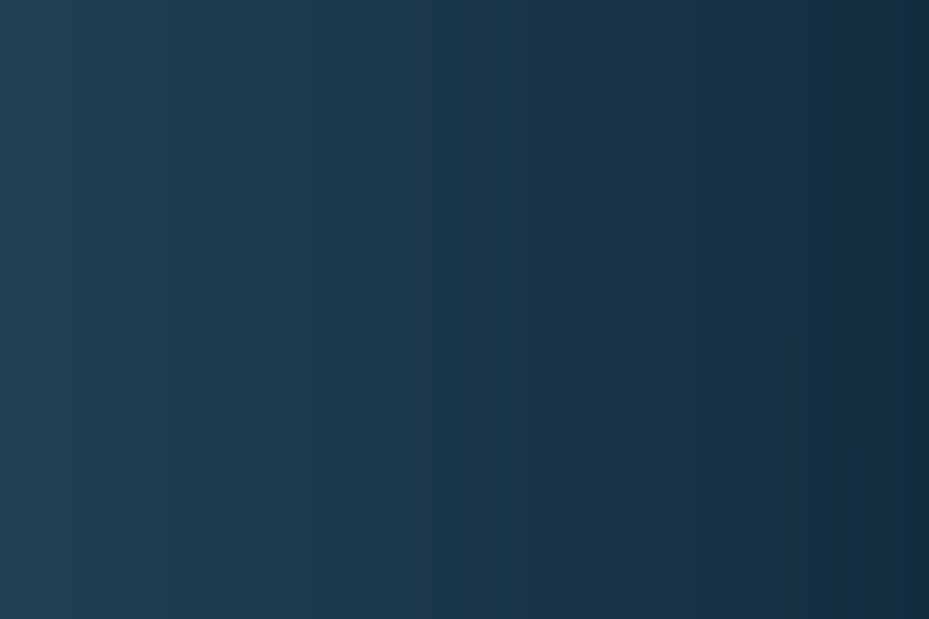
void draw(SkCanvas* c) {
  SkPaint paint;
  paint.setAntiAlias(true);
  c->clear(0xffffffff);
  {
    const SkColor colors[] = {0xff122d3e, 0xff204056};
    const float stops[] = {0, 1};
    const SkPoint ends[] = {{929, 310}, {0, 309}};
    paint.setShader(SkGradientShader::MakeLinear(ends, colors, stops, 2, SkTileMode::kClamp));
    paint.setAlpha(255);
  }
  c->drawRect(SkRect::MakeLTRB(0, 0, 929, 619), paint);
}
